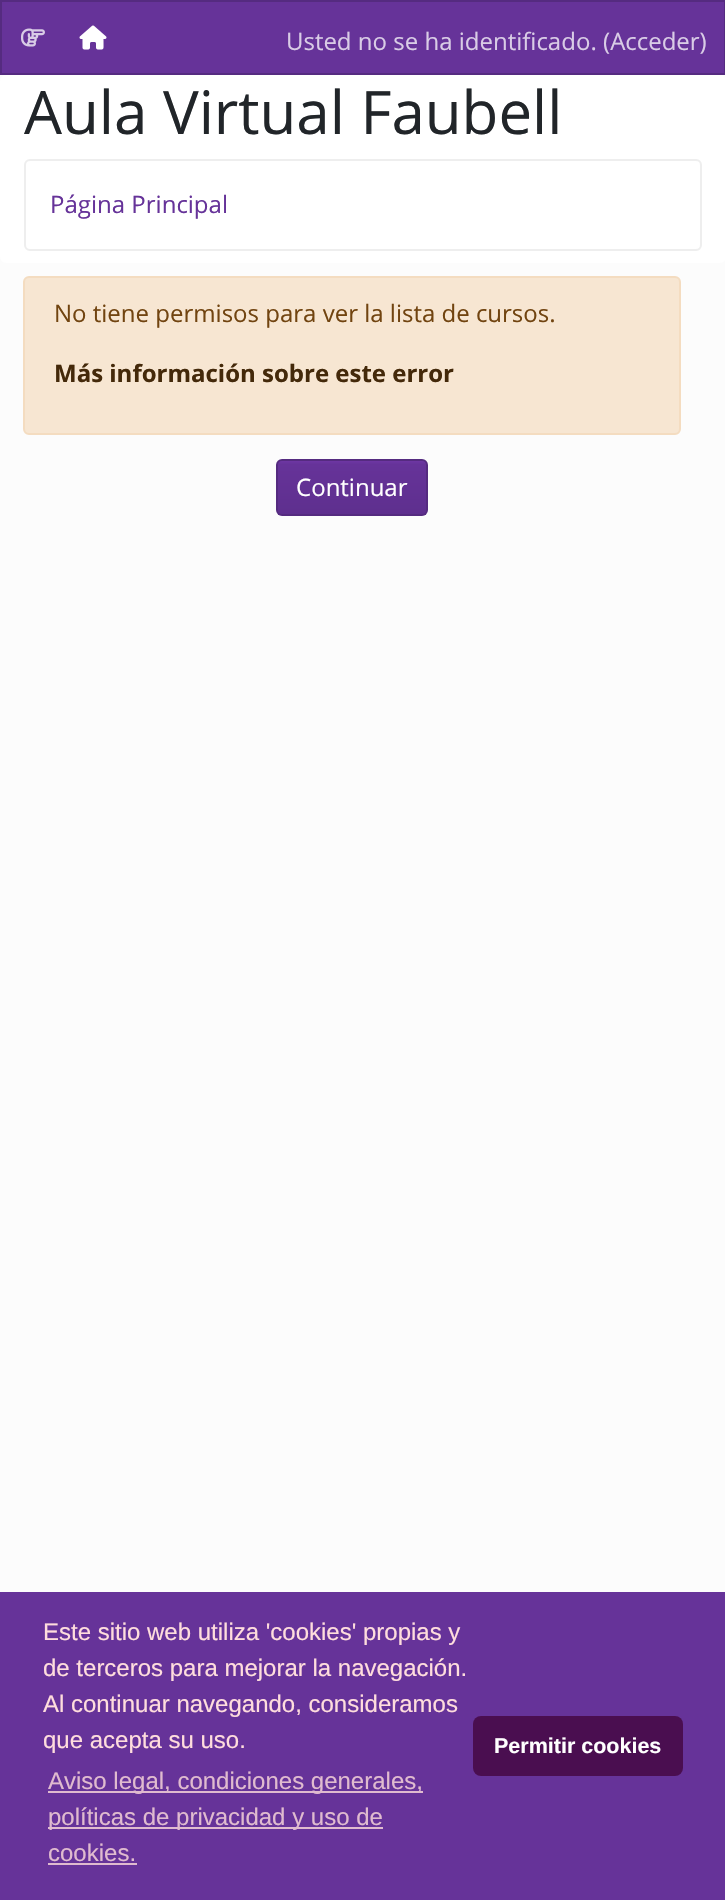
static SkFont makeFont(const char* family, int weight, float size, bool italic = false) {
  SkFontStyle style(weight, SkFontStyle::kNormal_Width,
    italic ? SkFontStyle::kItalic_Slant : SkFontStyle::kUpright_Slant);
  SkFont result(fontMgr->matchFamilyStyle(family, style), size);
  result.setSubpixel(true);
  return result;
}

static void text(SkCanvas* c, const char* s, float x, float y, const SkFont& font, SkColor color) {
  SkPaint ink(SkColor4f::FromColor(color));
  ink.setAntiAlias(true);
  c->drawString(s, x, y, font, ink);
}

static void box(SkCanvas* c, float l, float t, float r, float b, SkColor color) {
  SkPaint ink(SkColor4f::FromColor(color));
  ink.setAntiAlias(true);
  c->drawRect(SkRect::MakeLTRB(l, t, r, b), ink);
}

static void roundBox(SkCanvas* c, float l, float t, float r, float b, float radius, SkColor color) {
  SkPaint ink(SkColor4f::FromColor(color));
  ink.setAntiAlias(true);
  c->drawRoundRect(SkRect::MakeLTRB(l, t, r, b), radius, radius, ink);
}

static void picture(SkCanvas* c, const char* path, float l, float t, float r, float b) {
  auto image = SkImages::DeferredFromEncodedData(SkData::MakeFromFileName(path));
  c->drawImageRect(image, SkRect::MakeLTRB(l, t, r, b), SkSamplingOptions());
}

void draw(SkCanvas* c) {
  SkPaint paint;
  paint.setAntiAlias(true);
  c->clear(0xfffcfcfc);
  paint.setColor(0xff663399);
  c->drawRect(SkRect::MakeLTRB(1, 1, 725, 74), paint);
  paint.setStyle(SkPaint::kStroke_Style);
  paint.setStrokeWidth(2);
  paint.setColor(0xff552b80);
  c->drawRect(SkRect::MakeLTRB(1, 1, 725, 74), paint);
  picture(c, "img_01.png", 21, 28, 45, 47);
  picture(c, "img_02.png", 79, 25, 107, 50);
  SkFont face1 = makeFont("Open Sans", 400, 24);
  text(c, "Usted no se ha identificado. (Acceder)", 286, 50, face1, 0xffd9cce6);
  roundBox(c, 0, 75, 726, 263, 6, 0xffffffff);
  SkFont face2 = makeFont("Open Sans", 400, 60);
  text(c, "Aula Virtual Faubell", 24, 134, face2, 0xff212529);
  paint.setColor(0xffeeeeee);
  c->drawRoundRect(SkRect::MakeLTRB(25, 160, 701, 250), 5, 5, paint);
  text(c, "Página Principal", 50, 213, face1, 0xff663399);
  paint.setStyle(SkPaint::kFill_Style);
  paint.setColor(0xfff7e6d2);
  c->drawRoundRect(SkRect::MakeLTRB(24, 277, 680, 434), 5, 5, paint);
  paint.setStyle(SkPaint::kStroke_Style);
  paint.setColor(0xfff4dcc0);
  c->drawRoundRect(SkRect::MakeLTRB(24, 277, 680, 434), 5, 5, paint);
  text(c, "No tiene permisos para ver la lista de cursos.", 54, 322, face1, 0xff714410);
  SkFont face3 = makeFont("Open Sans", 700, 24);
  text(c, "Más información sobre este error", 54, 382, face3, 0xff44290a);
  paint.setStyle(SkPaint::kFill_Style);
  {
    const SkColor colors[] = {0xff6e37a4, 0xff663399, 0xff5e2f8e};
    const float stops[] = {0, 0.06f, 1};
    const SkPoint ends[] = {{352, 461}, {352, 515}};
    paint.setShader(SkGradientShader::MakeLinear(ends, colors, stops, 3, SkTileMode::kClamp));
    paint.setAlpha(255);
  }
  c->drawRect(SkRect::MakeLTRB(278, 461, 426, 515), paint);
  paint.setStyle(SkPaint::kStroke_Style);
  paint.setShader(nullptr);
  paint.setColor(0xff552b80);
  c->drawRoundRect(SkRect::MakeLTRB(277, 460, 427, 515), 5, 5, paint);
  text(c, "Continuar", 296, 496, face1, 0xffffffff);
  box(c, 0, 1592, 725, 1900, 0xff663399);
  SkFont face4 = makeFont("Liberation Sans", 400, 24);
  text(c, "Este sitio web utiliza 'cookies' propias y", 43, 1640, face4, 0xffffdddd);
  text(c, "de terceros para mejorar la navegación.", 43, 1676, face4, 0xffffdddd);
  text(c, "Al continuar navegando, consideramos", 43, 1712, face4, 0xffffdddd);
  text(c, "que acepta su uso.", 43, 1748, face4, 0xffffdddd);
  box(c, 48, 1791, 423, 1793, 0xffe0bbcf);
  text(c, "Aviso legal, condiciones generales,", 48, 1789, face4, 0xffe0bbcf);
  box(c, 48, 1827, 383, 1829, 0xffe0bbcf);
  text(c, "políticas de privacidad y uso de", 48, 1825, face4, 0xffe0bbcf);
  text(c, "cookies.", 48, 1861, face4, 0xffe0bbcf);
  box(c, 48, 1863, 137, 1865, 0xffe0bbcf);
  roundBox(c, 473, 1716, 683, 1776, 8, 0xff4a0e50);
  SkFont face5 = makeFont("Liberation Sans", 700, 21.5f);
  text(c, "Permitir cookies", 494, 1753, face5, 0xffffffff);
}
